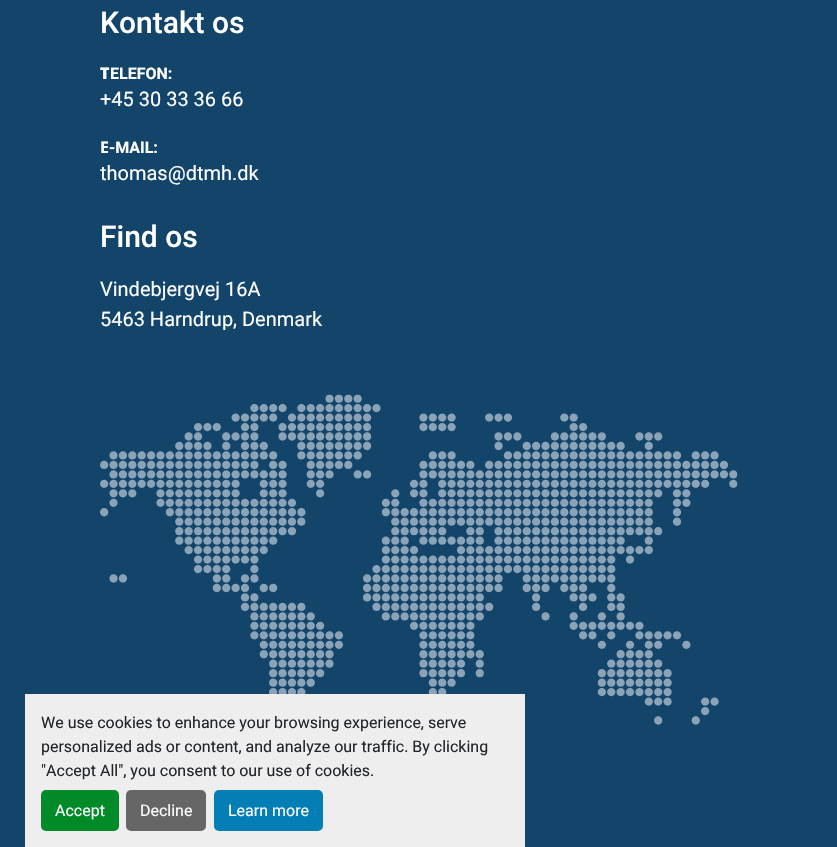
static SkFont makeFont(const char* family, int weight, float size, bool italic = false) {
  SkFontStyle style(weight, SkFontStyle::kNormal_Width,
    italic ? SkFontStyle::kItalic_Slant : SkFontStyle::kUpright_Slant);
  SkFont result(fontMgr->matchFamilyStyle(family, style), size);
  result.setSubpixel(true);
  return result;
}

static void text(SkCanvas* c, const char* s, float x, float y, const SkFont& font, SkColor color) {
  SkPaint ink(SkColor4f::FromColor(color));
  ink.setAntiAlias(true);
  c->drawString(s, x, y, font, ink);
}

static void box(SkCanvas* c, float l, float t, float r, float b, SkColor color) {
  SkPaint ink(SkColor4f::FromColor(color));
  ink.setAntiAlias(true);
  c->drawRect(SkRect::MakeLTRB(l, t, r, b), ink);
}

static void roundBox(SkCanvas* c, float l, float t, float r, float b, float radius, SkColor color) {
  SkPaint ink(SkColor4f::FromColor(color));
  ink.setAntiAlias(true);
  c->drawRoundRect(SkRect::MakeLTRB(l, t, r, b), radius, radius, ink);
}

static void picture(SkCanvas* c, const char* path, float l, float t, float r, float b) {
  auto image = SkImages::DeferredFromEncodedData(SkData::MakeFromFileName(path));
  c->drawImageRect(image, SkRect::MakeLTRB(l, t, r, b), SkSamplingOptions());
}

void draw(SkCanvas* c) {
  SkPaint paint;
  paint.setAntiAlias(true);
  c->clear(0xff13456b);
  SkFont face1 = makeFont("Roboto", 500, 30);
  text(c, "Kontakt os", 100, 33, face1, 0xffffffff);
  SkFont face2 = makeFont("Noto Sans", 900, 16);
  text(c, "T", 100, 79, face2, 0xffffffff);
  SkFont face3 = makeFont("Roboto", 700, 16);
  text(c, "ELEFON:", 110, 79, face3, 0xffffffff);
  SkFont face4 = makeFont("Roboto", 400, 20);
  text(c, "+45 30 33 36 66", 100, 106, face4, 0xffffffff);
  SkFont face5 = makeFont("Noto Sans", 700, 16);
  text(c, "E", 100, 153, face5, 0xffffffff);
  text(c, "-MAIL:", 109, 153, face3, 0xffffffff);
  text(c, "thomas@dtmh.dk", 100, 180, face4, 0xffffffff);
  text(c, "Find os", 100, 247, face1, 0xffffffff);
  text(c, "Vindebjergvej 16A", 100, 296, face4, 0xffffffff);
  text(c, "5463 Harndrup, Denmark", 100, 326, face4, 0xffffffff);
  picture(c, "img_01.png", 100, 394, 738, 725);
  box(c, 25, 694, 525, 847, 0xffeeeeee);
  SkFont face6 = makeFont("Roboto", 400, 16);
  text(c, "We use cookies to enhance your browsing experience, serve", 41, 728, face6, 0xff212529);
  text(c, "personalized ads or content, and analyze our traffic. By clicking", 41, 752, face6, 0xff212529);
  text(c, "\"Accept All\", you consent to our use of cookies.", 41, 776, face6, 0xff212529);
  roundBox(c, 41, 790, 119, 831, 5, 0xff008a28);
  text(c, "Accept", 55, 816, face6, 0xffffffff);
  roundBox(c, 126, 790, 206, 831, 5, 0xff666666);
  text(c, "Decline", 140, 816, face6, 0xffffffff);
  roundBox(c, 214, 790, 323, 831, 5, 0xff057eb6);
  text(c, "Learn more", 228, 816, face6, 0xffffffff);
}
